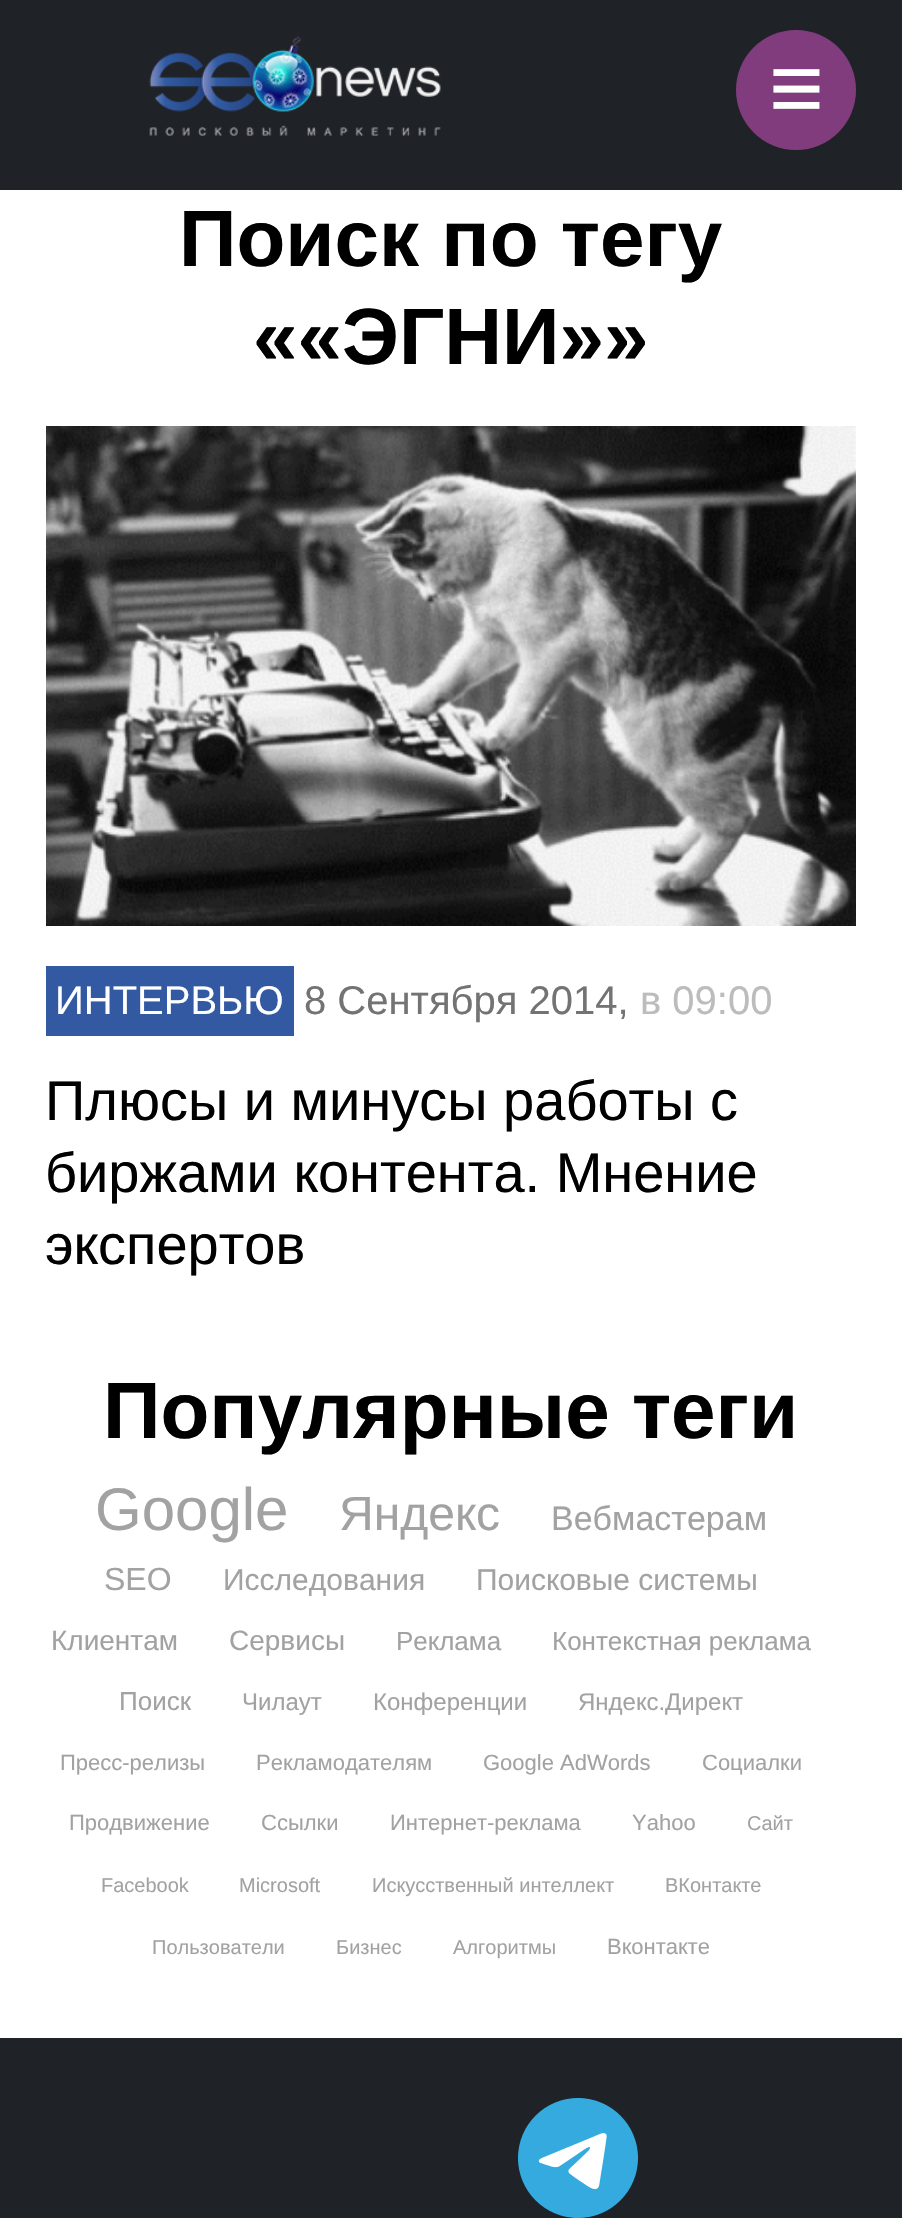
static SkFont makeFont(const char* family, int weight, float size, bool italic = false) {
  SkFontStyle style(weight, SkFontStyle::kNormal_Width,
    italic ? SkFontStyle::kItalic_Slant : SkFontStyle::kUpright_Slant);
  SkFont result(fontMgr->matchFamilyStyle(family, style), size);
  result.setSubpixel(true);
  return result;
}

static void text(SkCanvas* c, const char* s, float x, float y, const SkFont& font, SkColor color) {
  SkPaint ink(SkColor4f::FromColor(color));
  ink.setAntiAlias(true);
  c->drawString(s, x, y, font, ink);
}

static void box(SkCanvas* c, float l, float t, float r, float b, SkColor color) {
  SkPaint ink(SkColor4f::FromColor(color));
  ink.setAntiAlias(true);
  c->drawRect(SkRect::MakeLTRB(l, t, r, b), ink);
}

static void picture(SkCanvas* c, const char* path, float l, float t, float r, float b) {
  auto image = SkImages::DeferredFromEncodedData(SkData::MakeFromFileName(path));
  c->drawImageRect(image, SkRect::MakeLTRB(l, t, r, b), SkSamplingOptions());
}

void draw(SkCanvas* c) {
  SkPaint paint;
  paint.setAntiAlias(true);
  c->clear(0xffffffff);
  box(c, 0, 0, 902, 190, 0xff1f2226);
  picture(c, "img_01.png", 149, 36, 441, 136);
  paint.setColor(0xff813c7e);
  c->drawCircle(796, 90, 60, paint);
  SkFont face1 = makeFont("Liberation Sans", 400, 94);
  text(c, "≡", 769, 120, face1, 0xffffffff);
  SkFont face2 = makeFont("Liberation Sans", 700, 80);
  text(c, "Поиск по тегу", 179, 266, face2, 0xff000000);
  text(c, "««ЭГНИ»»", 253, 364, face2, 0xff000000);
  picture(c, "img_02.png", 46, 426, 856, 926);
  box(c, 46, 966, 294, 1036, 0xff3359a3);
  SkFont face3 = makeFont("Liberation Sans", 400, 40);
  text(c, "ИНТЕРВЬЮ", 55, 1014, face3, 0xffffffff);
  text(c, "8 Сентября 2014,", 304, 1014, face3, 0xff737373);
  text(c, "в 09:00", 640, 1014, face3, 0xffbcbcbc);
  SkFont face4 = makeFont("Liberation Sans", 400, 56);
  text(c, "Плюсы и минусы работы с", 45, 1120, face4, 0xff000000);
  text(c, "биржами контента. Мнение", 45, 1192, face4, 0xff000000);
  text(c, "экспертов", 45, 1264, face4, 0xff000000);
  text(c, "Популярные теги", 103, 1438, face2, 0xff000000);
  SkFont face5 = makeFont("Liberation Sans", 400, 60);
  text(c, "Google", 95, 1530, face5, 0xffa2a2a2);
  SkFont face6 = makeFont("Liberation Sans", 400, 48);
  text(c, "Яндекс", 339, 1530, face6, 0xffa2a2a2);
  SkFont face7 = makeFont("Liberation Sans", 400, 34);
  text(c, "Вебмастерам", 551, 1530, face7, 0xffa2a2a2);
  SkFont face8 = makeFont("Liberation Sans", 400, 32);
  text(c, "SEO", 104, 1590, face8, 0xffa2a2a2);
  SkFont face9 = makeFont("Liberation Sans", 400, 30);
  text(c, "Исследования", 223, 1590, face9, 0xffa2a2a2);
  text(c, "Поисковые системы", 476, 1590, face9, 0xffa2a2a2);
  SkFont face10 = makeFont("Liberation Sans", 400, 28);
  text(c, "Клиентам", 51, 1650, face10, 0xffa2a2a2);
  text(c, "Сервисы", 229, 1650, face10, 0xffa2a2a2);
  SkFont face11 = makeFont("Liberation Sans", 400, 26);
  text(c, "Реклама", 396, 1650, face11, 0xffa2a2a2);
  text(c, "Контекстная реклама", 552, 1650, face11, 0xffa2a2a2);
  text(c, "Поиск", 119, 1710, face11, 0xffa2a2a2);
  SkFont face12 = makeFont("Liberation Sans", 400, 24);
  text(c, "Чилаут", 242, 1710, face12, 0xffa2a2a2);
  text(c, "Конференции", 373, 1710, face12, 0xffa2a2a2);
  text(c, "Яндекс.Директ", 578, 1710, face12, 0xffa2a2a2);
  SkFont face13 = makeFont("Liberation Sans", 400, 22);
  text(c, "Пресс-релизы", 60, 1770, face13, 0xffa2a2a2);
  text(c, "Рекламодателям", 256, 1770, face13, 0xffa2a2a2);
  text(c, "Google AdWords", 483, 1770, face13, 0xffa2a2a2);
  text(c, "Социалки", 702, 1770, face13, 0xffa2a2a2);
  text(c, "Продвижение", 69, 1830, face13, 0xffa2a2a2);
  text(c, "Ссылки", 261, 1830, face13, 0xffa2a2a2);
  text(c, "Интернет-реклама", 390, 1830, face13, 0xffa2a2a2);
  text(c, "Yahoo", 632, 1830, face13, 0xffa2a2a2);
  SkFont face14 = makeFont("Liberation Sans", 400, 20);
  text(c, "Сайт", 747, 1830, face14, 0xffa2a2a2);
  text(c, "Facebook", 101, 1892, face14, 0xffa2a2a2);
  text(c, "Microsoft", 239, 1892, face14, 0xffa2a2a2);
  text(c, "Искусственный интеллект", 372, 1892, face14, 0xffa2a2a2);
  text(c, "ВКонтакте", 665, 1892, face14, 0xffa2a2a2);
  text(c, "Пользователи", 152, 1954, face14, 0xffa2a2a2);
  text(c, "Бизнес", 336, 1954, face14, 0xffa2a2a2);
  text(c, "Алгоритмы", 453, 1954, face14, 0xffa2a2a2);
  text(c, "Вконтакте", 607, 1954, face13, 0xffa2a2a2);
  box(c, 0, 2038, 902, 2218, 0xff1f2226);
  picture(c, "img_03.png", 518, 2098, 638, 2218);
}
